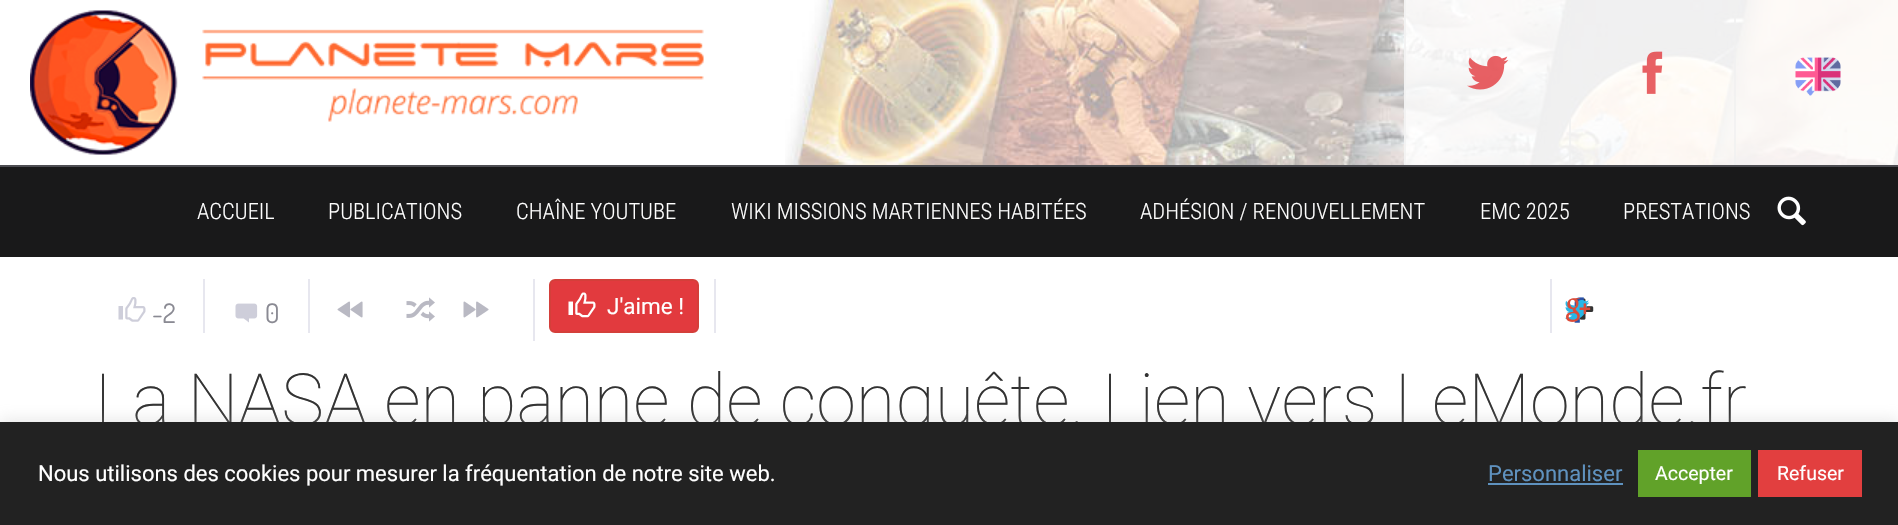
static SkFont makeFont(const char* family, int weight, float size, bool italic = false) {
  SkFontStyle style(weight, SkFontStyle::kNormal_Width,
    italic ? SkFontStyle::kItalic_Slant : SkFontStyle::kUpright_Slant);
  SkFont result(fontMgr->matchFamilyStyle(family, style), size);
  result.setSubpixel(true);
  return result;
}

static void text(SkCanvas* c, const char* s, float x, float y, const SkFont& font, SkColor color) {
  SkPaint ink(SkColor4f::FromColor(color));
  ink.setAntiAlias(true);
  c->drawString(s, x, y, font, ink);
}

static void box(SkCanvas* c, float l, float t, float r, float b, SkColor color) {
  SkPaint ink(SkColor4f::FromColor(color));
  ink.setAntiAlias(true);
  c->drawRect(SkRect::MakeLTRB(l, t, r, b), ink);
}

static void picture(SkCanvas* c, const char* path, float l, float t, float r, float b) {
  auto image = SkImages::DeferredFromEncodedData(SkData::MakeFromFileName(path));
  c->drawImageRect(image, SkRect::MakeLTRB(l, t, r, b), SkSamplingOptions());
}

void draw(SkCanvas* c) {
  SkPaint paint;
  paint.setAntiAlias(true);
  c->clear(0xffffffff);
  picture(c, "img_01.png", 30, 10, 704, 155);
  picture(c, "img_02.png", 785, 0, 1898, 165);
  box(c, 1404, 0, 1569, 165, 0xccffffff);
  box(c, 1404, 0, 1406, 165, 0xccf0f0f0);
  picture(c, "img_03.png", 1467, 55, 1509, 90);
  box(c, 1569, 0, 1734, 165, 0xccffffff);
  box(c, 1569, 119, 1571, 165, 0xccf0f0f0);
  picture(c, "img_04.png", 1642, 51, 1663, 94);
  box(c, 1734, 0, 1898, 165, 0xccffffff);
  box(c, 1734, 18, 1736, 165, 0xccf0f0f0);
  picture(c, "img_05.png", 1795, 57, 1841, 96);
  box(c, 0, 167, 1898, 257, 0xff19191a);
  box(c, 0, 165, 1898, 167, 0xff4d4d52);
  SkFont face1 = makeFont("Roboto Condensed", 300, 22.5f);
  text(c, "ACCUEIL", 197, 219, face1, 0xffffffff);
  text(c, "PUBLICATIONS", 328, 219, face1, 0xffffffff);
  text(c, "CHAÎNE YOUTUBE", 516, 219, face1, 0xffffffff);
  text(c, "WIKI MISSIONS MARTIENNES HABITÉES", 731, 219, face1, 0xffffffff);
  text(c, "ADHÉSION / RENOUVELLEMENT", 1140, 219, face1, 0xffffffff);
  text(c, "EMC 2025", 1480, 219, face1, 0xffffffff);
  text(c, "PRESTATIONS", 1623, 219, face1, 0xffffffff);
  picture(c, "img_06.png", 1777, 196, 1806, 226);
  box(c, 203, 279, 205, 333, 0xffe7e7ef);
  picture(c, "img_07.png", 118, 297, 146, 322);
  SkFont face2 = makeFont("Dosis", 400, 27);
  text(c, "-2", 152, 323, face2, 0xff8a8a93);
  box(c, 308, 279, 310, 333, 0xffe7e7ef);
  picture(c, "img_08.png", 235, 303, 258, 323);
  text(c, "0", 265, 323, face2, 0xff8a8a93);
  box(c, 533, 279, 535, 341, 0xffe7e7ef);
  picture(c, "img_09.png", 337, 301, 363, 318);
  picture(c, "img_10.png", 406, 297, 435, 322);
  picture(c, "img_11.png", 463, 301, 489, 318);
  box(c, 714, 279, 716, 333, 0xffe7e7ef);
  paint.setColor(0xffe23a3e);
  c->drawRoundRect(SkRect::MakeLTRB(550, 280, 698, 332), 5, 5, paint);
  paint.setStyle(SkPaint::kStroke_Style);
  paint.setStrokeWidth(2);
  paint.setColor(0xffd43f3a);
  c->drawRoundRect(SkRect::MakeLTRB(550, 280, 698, 332), 5, 5, paint);
  picture(c, "img_12.png", 568, 292, 596, 318);
  SkFont face3 = makeFont("Roboto", 400, 22.5f);
  text(c, "J'aime !", 607, 314, face3, 0xffffffff);
  box(c, 1550, 279, 1552, 333, 0xffe7e7ef);
  picture(c, "img_13.png", 1579, 298, 1594, 320);
  picture(c, "img_14.png", 1572, 297, 1584, 323);
  picture(c, "img_16.png", 1564, 300, 1590, 320);
  picture(c, "img_15.png", 1566, 298, 1591, 322);
  SkFont face4 = makeFont("Roboto", 100, 72);
  text(c, "La NASA en panne de conquête. Lien vers LeMonde.fr", 95, 425, face4, 0xff333333);
  paint.setStyle(SkPaint::kFill_Style);
  paint.setColor(0x4dacabab);
  paint.setMaskFilter(SkMaskFilter::MakeBlur(kNormal_SkBlurStyle, 7.5f));
  c->drawRect(SkRect::MakeLTRB(0, 420, 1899, 524), paint);
  paint.setMaskFilter(nullptr);
  box(c, 0, 422, 1898, 525, 0xff222222);
  SkFont face5 = makeFont("Roboto", 400, 22);
  text(c, "Nous utilisons des cookies pour mesurer la fréquentation de notre site web.", 38, 481, face5, 0xffffffff);
  text(c, "Personnaliser", 1488, 481, face5, 0xff5f92bf);
  box(c, 1488, 483, 1623, 485, 0xff5f92bf);
  box(c, 1638, 450, 1751, 497, 0xff61a229);
  SkFont face6 = makeFont("Roboto", 400, 19.5f);
  text(c, "Accepter", 1655, 480, face6, 0xffffffff);
  box(c, 1758, 450, 1862, 497, 0xffe23f3f);
  text(c, "Refuser", 1777, 480, face6, 0xffffffff);
}
